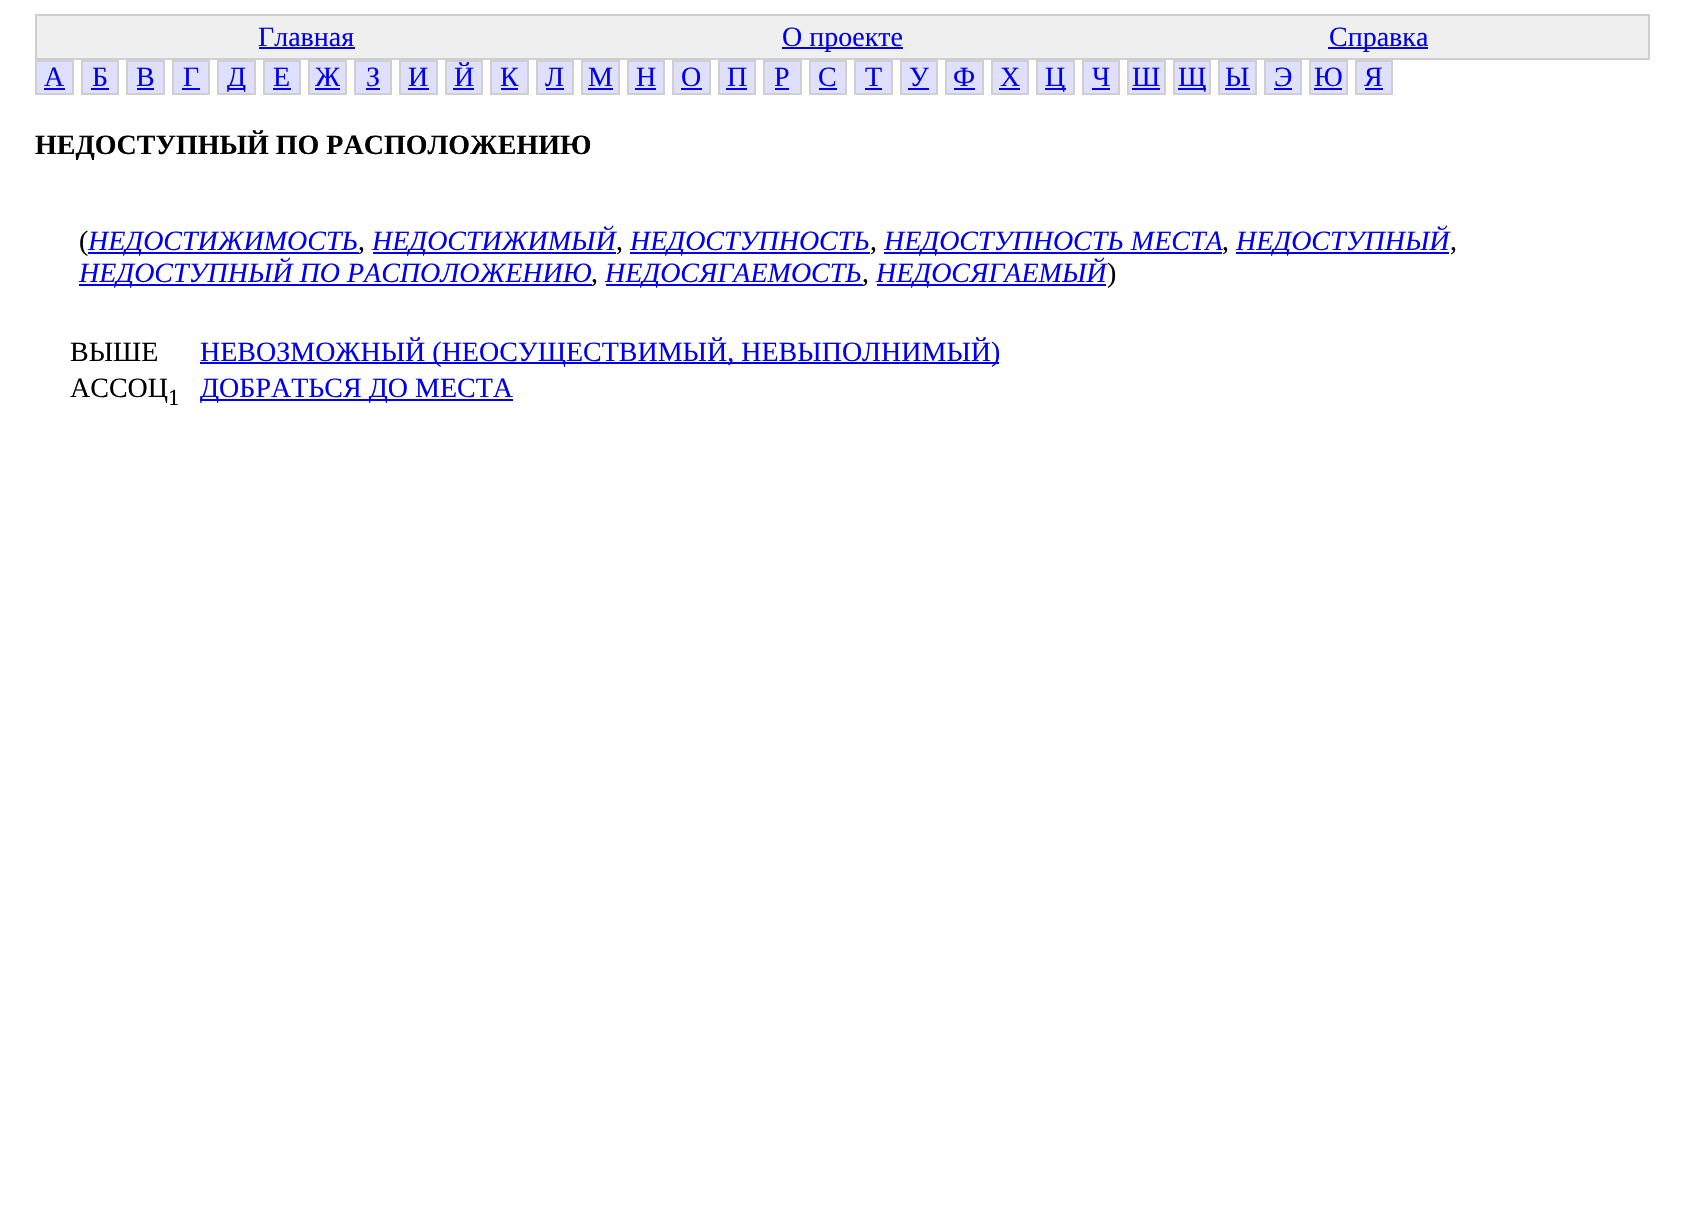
static SkFont makeFont(const char* family, int weight, float size, bool italic = false) {
  SkFontStyle style(weight, SkFontStyle::kNormal_Width,
    italic ? SkFontStyle::kItalic_Slant : SkFontStyle::kUpright_Slant);
  SkFont result(fontMgr->matchFamilyStyle(family, style), size);
  result.setSubpixel(true);
  return result;
}

static void text(SkCanvas* c, const char* s, float x, float y, const SkFont& font, SkColor color) {
  SkPaint ink(SkColor4f::FromColor(color));
  ink.setAntiAlias(true);
  c->drawString(s, x, y, font, ink);
}

static void box(SkCanvas* c, float l, float t, float r, float b, SkColor color) {
  SkPaint ink(SkColor4f::FromColor(color));
  ink.setAntiAlias(true);
  c->drawRect(SkRect::MakeLTRB(l, t, r, b), ink);
}

void draw(SkCanvas* c) {
  SkPaint paint;
  paint.setAntiAlias(true);
  c->clear(0xffffffff);
  paint.setColor(0xffefefef);
  c->drawRect(SkRect::MakeLTRB(36, 15, 1649, 59), paint);
  paint.setStyle(SkPaint::kStroke_Style);
  paint.setStrokeWidth(2);
  paint.setColor(0xffcfcfcf);
  c->drawRect(SkRect::MakeLTRB(36, 15, 1649, 59), paint);
  SkFont face1 = makeFont("Liberation Serif", 400, 28);
  text(c, "Главная", 258, 46, face1, 0xff0000ee);
  box(c, 259, 47, 355, 49, 0xff0000ee);
  box(c, 782, 47, 903, 49, 0xff0000ee);
  text(c, "О проекте", 782, 46, face1, 0xff0000ee);
  box(c, 1328, 47, 1428, 49, 0xff0000ee);
  text(c, "Справка", 1329, 46, face1, 0xff0000ee);
  paint.setStyle(SkPaint::kFill_Style);
  paint.setColor(0xffdfdfff);
  c->drawRect(SkRect::MakeLTRB(36, 61, 73, 94), paint);
  paint.setStyle(SkPaint::kStroke_Style);
  paint.setColor(0xffcfcfcf);
  c->drawRect(SkRect::MakeLTRB(36, 61, 73, 94), paint);
  text(c, "А", 44, 86, face1, 0xff0000ee);
  box(c, 44, 88, 65, 90, 0xff0000ee);
  paint.setStyle(SkPaint::kFill_Style);
  paint.setColor(0xffdfdfff);
  c->drawRect(SkRect::MakeLTRB(82, 61, 118, 94), paint);
  paint.setStyle(SkPaint::kStroke_Style);
  paint.setColor(0xffcfcfcf);
  c->drawRect(SkRect::MakeLTRB(82, 61, 118, 94), paint);
  text(c, "Б", 92, 86, face1, 0xff0000ee);
  box(c, 91, 88, 109, 90, 0xff0000ee);
  paint.setStyle(SkPaint::kFill_Style);
  paint.setColor(0xffdfdfff);
  c->drawRect(SkRect::MakeLTRB(127, 61, 164, 94), paint);
  paint.setStyle(SkPaint::kStroke_Style);
  paint.setColor(0xffcfcfcf);
  c->drawRect(SkRect::MakeLTRB(127, 61, 164, 94), paint);
  text(c, "В", 136, 86, face1, 0xff0000ee);
  box(c, 137, 88, 154, 90, 0xff0000ee);
  paint.setStyle(SkPaint::kFill_Style);
  paint.setColor(0xffdfdfff);
  c->drawRect(SkRect::MakeLTRB(173, 61, 209, 94), paint);
  paint.setStyle(SkPaint::kStroke_Style);
  paint.setColor(0xffcfcfcf);
  c->drawRect(SkRect::MakeLTRB(173, 61, 209, 94), paint);
  text(c, "Г", 183, 86, face1, 0xff0000ee);
  box(c, 182, 88, 200, 90, 0xff0000ee);
  paint.setStyle(SkPaint::kFill_Style);
  paint.setColor(0xffdfdfff);
  c->drawRect(SkRect::MakeLTRB(218, 61, 255, 94), paint);
  paint.setStyle(SkPaint::kStroke_Style);
  paint.setColor(0xffcfcfcf);
  c->drawRect(SkRect::MakeLTRB(218, 61, 255, 94), paint);
  box(c, 228, 88, 245, 90, 0xff0000ee);
  text(c, "Д", 227, 86, face1, 0xff0000ee);
  paint.setStyle(SkPaint::kFill_Style);
  paint.setColor(0xffdfdfff);
  c->drawRect(SkRect::MakeLTRB(264, 61, 300, 94), paint);
  paint.setStyle(SkPaint::kStroke_Style);
  paint.setColor(0xffcfcfcf);
  c->drawRect(SkRect::MakeLTRB(264, 61, 300, 94), paint);
  text(c, "Е", 273, 86, face1, 0xff0000ee);
  box(c, 273, 88, 291, 90, 0xff0000ee);
  paint.setStyle(SkPaint::kFill_Style);
  paint.setColor(0xffdfdfff);
  c->drawRect(SkRect::MakeLTRB(309, 61, 346, 94), paint);
  paint.setStyle(SkPaint::kStroke_Style);
  paint.setColor(0xffcfcfcf);
  c->drawRect(SkRect::MakeLTRB(309, 61, 346, 94), paint);
  text(c, "Ж", 315, 86, face1, 0xff0000ee);
  box(c, 315, 88, 340, 90, 0xff0000ee);
  paint.setStyle(SkPaint::kFill_Style);
  paint.setColor(0xffdfdfff);
  c->drawRect(SkRect::MakeLTRB(355, 61, 391, 94), paint);
  paint.setStyle(SkPaint::kStroke_Style);
  paint.setColor(0xffcfcfcf);
  c->drawRect(SkRect::MakeLTRB(355, 61, 391, 94), paint);
  text(c, "З", 366, 86, face1, 0xff0000ee);
  box(c, 366, 88, 380, 90, 0xff0000ee);
  paint.setStyle(SkPaint::kFill_Style);
  paint.setColor(0xffdfdfff);
  c->drawRect(SkRect::MakeLTRB(400, 61, 437, 94), paint);
  paint.setStyle(SkPaint::kStroke_Style);
  paint.setColor(0xffcfcfcf);
  c->drawRect(SkRect::MakeLTRB(400, 61, 437, 94), paint);
  text(c, "И", 408, 86, face1, 0xff0000ee);
  box(c, 408, 88, 429, 90, 0xff0000ee);
  paint.setStyle(SkPaint::kFill_Style);
  paint.setColor(0xffdfdfff);
  c->drawRect(SkRect::MakeLTRB(446, 61, 482, 94), paint);
  paint.setStyle(SkPaint::kStroke_Style);
  paint.setColor(0xffcfcfcf);
  c->drawRect(SkRect::MakeLTRB(446, 61, 482, 94), paint);
  text(c, "Й", 454, 86, face1, 0xff0000ee);
  box(c, 453, 88, 474, 90, 0xff0000ee);
  paint.setStyle(SkPaint::kFill_Style);
  paint.setColor(0xffdfdfff);
  c->drawRect(SkRect::MakeLTRB(491, 61, 528, 94), paint);
  paint.setStyle(SkPaint::kStroke_Style);
  paint.setColor(0xffcfcfcf);
  c->drawRect(SkRect::MakeLTRB(491, 61, 528, 94), paint);
  text(c, "К", 500, 86, face1, 0xff0000ee);
  box(c, 501, 88, 518, 90, 0xff0000ee);
  paint.setStyle(SkPaint::kFill_Style);
  paint.setColor(0xffdfdfff);
  c->drawRect(SkRect::MakeLTRB(537, 61, 573, 94), paint);
  paint.setStyle(SkPaint::kStroke_Style);
  paint.setColor(0xffcfcfcf);
  c->drawRect(SkRect::MakeLTRB(537, 61, 573, 94), paint);
  text(c, "Л", 545, 86, face1, 0xff0000ee);
  box(c, 546, 88, 564, 90, 0xff0000ee);
  paint.setStyle(SkPaint::kFill_Style);
  paint.setColor(0xffdfdfff);
  c->drawRect(SkRect::MakeLTRB(582, 61, 619, 94), paint);
  paint.setStyle(SkPaint::kStroke_Style);
  paint.setColor(0xffcfcfcf);
  c->drawRect(SkRect::MakeLTRB(582, 61, 619, 94), paint);
  text(c, "М", 588, 86, face1, 0xff0000ee);
  box(c, 588, 88, 613, 90, 0xff0000ee);
  paint.setStyle(SkPaint::kFill_Style);
  paint.setColor(0xffdfdfff);
  c->drawRect(SkRect::MakeLTRB(628, 61, 664, 94), paint);
  paint.setStyle(SkPaint::kStroke_Style);
  paint.setColor(0xffcfcfcf);
  c->drawRect(SkRect::MakeLTRB(628, 61, 664, 94), paint);
  text(c, "Н", 636, 86, face1, 0xff0000ee);
  box(c, 635, 88, 656, 90, 0xff0000ee);
  paint.setStyle(SkPaint::kFill_Style);
  paint.setColor(0xffdfdfff);
  c->drawRect(SkRect::MakeLTRB(673, 61, 710, 94), paint);
  paint.setStyle(SkPaint::kStroke_Style);
  paint.setColor(0xffcfcfcf);
  c->drawRect(SkRect::MakeLTRB(673, 61, 710, 94), paint);
  text(c, "О", 681, 86, face1, 0xff0000ee);
  box(c, 681, 88, 702, 90, 0xff0000ee);
  paint.setStyle(SkPaint::kFill_Style);
  paint.setColor(0xffdfdfff);
  c->drawRect(SkRect::MakeLTRB(719, 61, 755, 94), paint);
  paint.setStyle(SkPaint::kStroke_Style);
  paint.setColor(0xffcfcfcf);
  c->drawRect(SkRect::MakeLTRB(719, 61, 755, 94), paint);
  text(c, "П", 727, 86, face1, 0xff0000ee);
  box(c, 726, 88, 747, 90, 0xff0000ee);
  paint.setStyle(SkPaint::kFill_Style);
  paint.setColor(0xffdfdfff);
  c->drawRect(SkRect::MakeLTRB(764, 61, 801, 94), paint);
  paint.setStyle(SkPaint::kStroke_Style);
  paint.setColor(0xffcfcfcf);
  c->drawRect(SkRect::MakeLTRB(764, 61, 801, 94), paint);
  text(c, "Р", 774, 86, face1, 0xff0000ee);
  box(c, 775, 88, 789, 90, 0xff0000ee);
  paint.setStyle(SkPaint::kFill_Style);
  paint.setColor(0xffdfdfff);
  c->drawRect(SkRect::MakeLTRB(810, 61, 846, 94), paint);
  paint.setStyle(SkPaint::kStroke_Style);
  paint.setColor(0xffcfcfcf);
  c->drawRect(SkRect::MakeLTRB(810, 61, 846, 94), paint);
  text(c, "С", 818, 86, face1, 0xff0000ee);
  box(c, 819, 88, 837, 90, 0xff0000ee);
  paint.setStyle(SkPaint::kFill_Style);
  paint.setColor(0xffdfdfff);
  c->drawRect(SkRect::MakeLTRB(855, 61, 892, 94), paint);
  paint.setStyle(SkPaint::kStroke_Style);
  paint.setColor(0xffcfcfcf);
  c->drawRect(SkRect::MakeLTRB(855, 61, 892, 94), paint);
  text(c, "Т", 865, 86, face1, 0xff0000ee);
  box(c, 865, 88, 882, 90, 0xff0000ee);
  paint.setStyle(SkPaint::kFill_Style);
  paint.setColor(0xffdfdfff);
  c->drawRect(SkRect::MakeLTRB(901, 61, 937, 94), paint);
  paint.setStyle(SkPaint::kStroke_Style);
  paint.setColor(0xffcfcfcf);
  c->drawRect(SkRect::MakeLTRB(901, 61, 937, 94), paint);
  text(c, "У", 909, 86, face1, 0xff0000ee);
  box(c, 908, 88, 929, 90, 0xff0000ee);
  paint.setStyle(SkPaint::kFill_Style);
  paint.setColor(0xffdfdfff);
  c->drawRect(SkRect::MakeLTRB(946, 61, 983, 94), paint);
  paint.setStyle(SkPaint::kStroke_Style);
  paint.setColor(0xffcfcfcf);
  c->drawRect(SkRect::MakeLTRB(946, 61, 983, 94), paint);
  text(c, "Ф", 953, 86, face1, 0xff0000ee);
  box(c, 954, 88, 975, 90, 0xff0000ee);
  paint.setStyle(SkPaint::kFill_Style);
  paint.setColor(0xffdfdfff);
  c->drawRect(SkRect::MakeLTRB(992, 61, 1028, 94), paint);
  paint.setStyle(SkPaint::kStroke_Style);
  paint.setColor(0xffcfcfcf);
  c->drawRect(SkRect::MakeLTRB(992, 61, 1028, 94), paint);
  text(c, "Х", 1000, 86, face1, 0xff0000ee);
  box(c, 999, 88, 1020, 90, 0xff0000ee);
  paint.setStyle(SkPaint::kFill_Style);
  paint.setColor(0xffdfdfff);
  c->drawRect(SkRect::MakeLTRB(1037, 61, 1074, 94), paint);
  paint.setStyle(SkPaint::kStroke_Style);
  paint.setColor(0xffcfcfcf);
  c->drawRect(SkRect::MakeLTRB(1037, 61, 1074, 94), paint);
  box(c, 1045, 88, 1066, 90, 0xff0000ee);
  text(c, "Ц", 1045, 86, face1, 0xff0000ee);
  paint.setStyle(SkPaint::kFill_Style);
  paint.setColor(0xffdfdfff);
  c->drawRect(SkRect::MakeLTRB(1083, 61, 1119, 94), paint);
  paint.setStyle(SkPaint::kStroke_Style);
  paint.setColor(0xffcfcfcf);
  c->drawRect(SkRect::MakeLTRB(1083, 61, 1119, 94), paint);
  text(c, "Ч", 1092, 86, face1, 0xff0000ee);
  box(c, 1092, 88, 1110, 90, 0xff0000ee);
  paint.setStyle(SkPaint::kFill_Style);
  paint.setColor(0xffdfdfff);
  c->drawRect(SkRect::MakeLTRB(1128, 61, 1165, 94), paint);
  paint.setStyle(SkPaint::kStroke_Style);
  paint.setColor(0xffcfcfcf);
  c->drawRect(SkRect::MakeLTRB(1128, 61, 1165, 94), paint);
  text(c, "Ш", 1132, 86, face1, 0xff0000ee);
  box(c, 1132, 88, 1160, 90, 0xff0000ee);
  paint.setStyle(SkPaint::kFill_Style);
  paint.setColor(0xffdfdfff);
  c->drawRect(SkRect::MakeLTRB(1174, 61, 1210, 94), paint);
  paint.setStyle(SkPaint::kStroke_Style);
  paint.setColor(0xffcfcfcf);
  c->drawRect(SkRect::MakeLTRB(1174, 61, 1210, 94), paint);
  box(c, 1178, 88, 1206, 90, 0xff0000ee);
  text(c, "Щ", 1178, 86, face1, 0xff0000ee);
  paint.setStyle(SkPaint::kFill_Style);
  paint.setColor(0xffdfdfff);
  c->drawRect(SkRect::MakeLTRB(1219, 61, 1256, 94), paint);
  paint.setStyle(SkPaint::kStroke_Style);
  paint.setColor(0xffcfcfcf);
  c->drawRect(SkRect::MakeLTRB(1219, 61, 1256, 94), paint);
  text(c, "Ы", 1225, 86, face1, 0xff0000ee);
  box(c, 1225, 88, 1250, 90, 0xff0000ee);
  paint.setStyle(SkPaint::kFill_Style);
  paint.setColor(0xffdfdfff);
  c->drawRect(SkRect::MakeLTRB(1265, 61, 1301, 94), paint);
  paint.setStyle(SkPaint::kStroke_Style);
  paint.setColor(0xffcfcfcf);
  c->drawRect(SkRect::MakeLTRB(1265, 61, 1301, 94), paint);
  text(c, "Э", 1274, 86, face1, 0xff0000ee);
  box(c, 1274, 88, 1292, 90, 0xff0000ee);
  paint.setStyle(SkPaint::kFill_Style);
  paint.setColor(0xffdfdfff);
  c->drawRect(SkRect::MakeLTRB(1310, 61, 1347, 94), paint);
  paint.setStyle(SkPaint::kStroke_Style);
  paint.setColor(0xffcfcfcf);
  c->drawRect(SkRect::MakeLTRB(1310, 61, 1347, 94), paint);
  text(c, "Ю", 1314, 86, face1, 0xff0000ee);
  box(c, 1314, 88, 1342, 90, 0xff0000ee);
  paint.setStyle(SkPaint::kFill_Style);
  paint.setColor(0xffdfdfff);
  c->drawRect(SkRect::MakeLTRB(1356, 61, 1392, 94), paint);
  paint.setStyle(SkPaint::kStroke_Style);
  paint.setColor(0xffcfcfcf);
  c->drawRect(SkRect::MakeLTRB(1356, 61, 1392, 94), paint);
  text(c, "Я", 1364, 86, face1, 0xff0000ee);
  box(c, 1365, 88, 1383, 90, 0xff0000ee);
  SkFont face2 = makeFont("Liberation Serif", 700, 28);
  text(c, "НЕДОСТУПНЫЙ ПО РАСПОЛОЖЕНИЮ", 35, 154, face2, 0xff000000);
  text(c, "(", 79, 250, face1, 0xff000000);
  box(c, 88, 252, 359, 254, 0xff0000ee);
  SkFont face3 = makeFont("Liberation Serif", 400, 28, true);
  text(c, "НЕДОСТИЖИМОСТЬ", 88, 250, face3, 0xff0000ee);
  text(c, ",", 358, 250, face1, 0xff000000);
  box(c, 373, 252, 616, 254, 0xff0000ee);
  text(c, "НЕДОСТИЖИМЫЙ", 372, 250, face3, 0xff0000ee);
  text(c, ",", 616, 250, face1, 0xff000000);
  box(c, 630, 252, 870, 254, 0xff0000ee);
  text(c, "НЕДОСТУПНОСТЬ", 630, 250, face3, 0xff0000ee);
  text(c, ",", 870, 250, face1, 0xff000000);
  box(c, 884, 252, 1222, 254, 0xff0000ee);
  text(c, "НЕДОСТУПНОСТЬ МЕСТА", 884, 250, face3, 0xff0000ee);
  text(c, ",", 1222, 250, face1, 0xff000000);
  box(c, 1236, 252, 1449, 254, 0xff0000ee);
  text(c, "НЕДОСТУПНЫЙ", 1236, 250, face3, 0xff0000ee);
  text(c, ",", 1450, 250, face1, 0xff000000);
  box(c, 79, 284, 592, 286, 0xff0000ee);
  text(c, "НЕДОСТУПНЫЙ ПО РАСПОЛОЖЕНИЮ", 79, 282, face3, 0xff0000ee);
  text(c, ",", 591, 282, face1, 0xff000000);
  box(c, 606, 284, 863, 286, 0xff0000ee);
  text(c, "НЕДОСЯГАЕМОСТЬ", 605, 282, face3, 0xff0000ee);
  text(c, ",", 862, 282, face1, 0xff000000);
  box(c, 877, 284, 1106, 286, 0xff0000ee);
  text(c, "НЕДОСЯГАЕМЫЙ", 876, 282, face3, 0xff0000ee);
  text(c, ")", 1107, 282, face1, 0xff000000);
  text(c, "ВЫШЕ", 70, 361, face1, 0xff000000);
  box(c, 200, 362, 999, 364, 0xff0000ee);
  text(c, "НЕВОЗМОЖНЫЙ (НЕОСУЩЕСТВИМЫЙ, НЕВЫПОЛНИМЫЙ)", 200, 361, face1, 0xff0000ee);
  text(c, "АССОЦ", 70, 397, face1, 0xff000000);
  SkFont face4 = makeFont("Liberation Serif", 400, 23);
  text(c, "1", 168, 405, face4, 0xff000000);
  box(c, 200, 399, 513, 401, 0xff0000ee);
  text(c, "ДОБРАТЬСЯ ДО МЕСТА", 200, 397, face1, 0xff0000ee);
}
